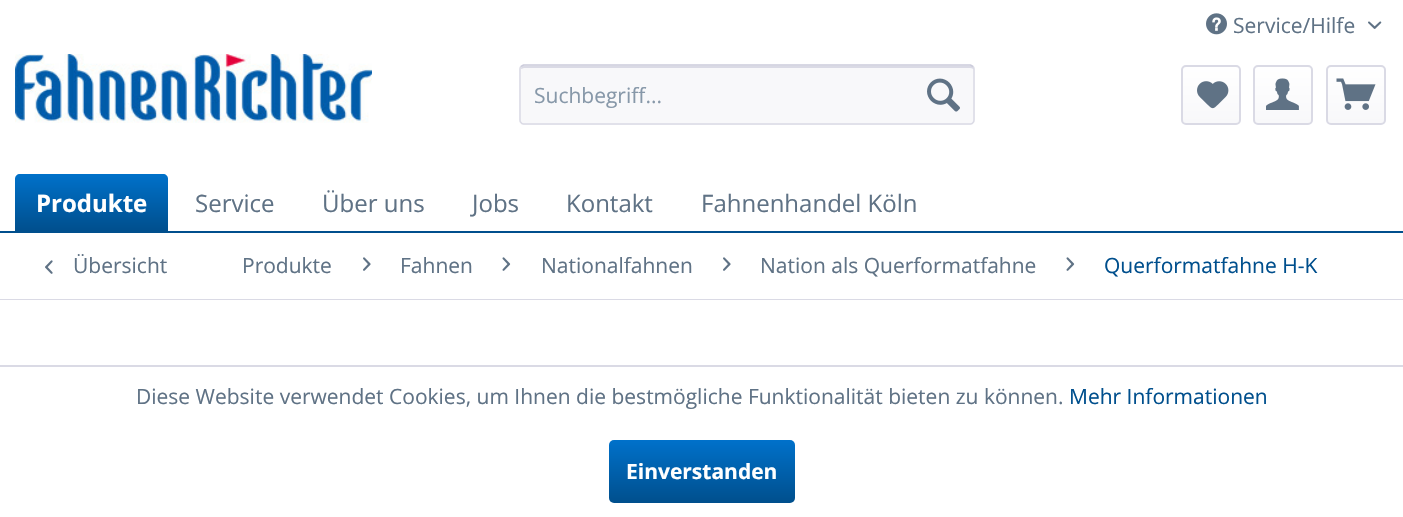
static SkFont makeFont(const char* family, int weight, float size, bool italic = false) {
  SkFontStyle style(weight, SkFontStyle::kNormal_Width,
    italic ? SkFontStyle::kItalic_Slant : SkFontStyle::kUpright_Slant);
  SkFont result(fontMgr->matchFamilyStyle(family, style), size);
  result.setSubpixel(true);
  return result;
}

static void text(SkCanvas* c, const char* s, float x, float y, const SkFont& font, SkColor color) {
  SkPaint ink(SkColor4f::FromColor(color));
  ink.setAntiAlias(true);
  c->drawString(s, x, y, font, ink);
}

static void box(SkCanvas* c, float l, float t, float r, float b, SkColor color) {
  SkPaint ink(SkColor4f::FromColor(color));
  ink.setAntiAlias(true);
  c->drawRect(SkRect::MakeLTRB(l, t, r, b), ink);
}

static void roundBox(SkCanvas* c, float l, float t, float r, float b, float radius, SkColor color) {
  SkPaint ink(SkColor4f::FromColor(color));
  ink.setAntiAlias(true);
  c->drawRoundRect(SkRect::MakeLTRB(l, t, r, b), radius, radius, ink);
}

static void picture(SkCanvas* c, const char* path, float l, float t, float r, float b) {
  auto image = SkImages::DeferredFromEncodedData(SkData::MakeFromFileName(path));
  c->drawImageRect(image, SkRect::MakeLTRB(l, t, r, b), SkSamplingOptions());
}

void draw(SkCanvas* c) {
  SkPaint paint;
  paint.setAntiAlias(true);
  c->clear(0xffffffff);
  picture(c, "img_01.png", 1206, 13, 1227, 35);
  SkFont face1 = makeFont("Open Sans", 400, 21);
  text(c, "Service/Hilfe", 1233, 33, face1, 0xff5f7285);
  picture(c, "img_02.png", 1368, 21, 1382, 29);
  picture(c, "img_03.png", 15, 54, 372, 123);
  roundBox(c, 519, 65, 975, 125, 5, 0xfff8f8fa);
  paint.setColor(0xffdadae5);
  c->drawPath(SkPathBuilder().moveTo(524, 68).lineTo(970, 68).cubicTo(972, 68, 974, 69, 974, 70).lineTo(974, 69).cubicTo(974, 67, 973, 66, 971, 66).lineTo(524, 66).cubicTo(522, 66, 521, 67, 521, 69).close().detach(), paint);
  paint.setStyle(SkPaint::kStroke_Style);
  paint.setStrokeWidth(1.5f);
  paint.setColor(0xffcbcbdb);
  c->drawPath(SkPathBuilder().moveTo(521, 66.5f).lineTo(523.5f, 65).lineTo(970.5f, 65).lineTo(973, 66.5f).detach(), paint);
  paint.setColor(0xffdadae5);
  c->drawPath(SkPathBuilder().moveTo(973, 66.5f).cubicTo(974, 67, 974, 68, 974, 69).lineTo(974, 120).cubicTo(974, 121, 974, 122, 973, 122.5f).cubicTo(972.5f, 123.5f, 971.5f, 124, 970.5f, 124).lineTo(523.5f, 124).cubicTo(522.5f, 124, 521.5f, 123.5f, 521, 122.5f).cubicTo(520, 122, 520, 121, 520, 120).lineTo(520, 69).cubicTo(520, 68, 520, 67, 521, 66.5f).detach(), paint);
  text(c, "Suchbegriff...", 534, 103, face1, 0xff8798a9);
  picture(c, "img_04.png", 927, 78, 960, 112);
  paint.setStyle(SkPaint::kFill_Style);
  {
    const SkColor colors[] = {0xffffffff, 0xfff8f8fa};
    const float stops[] = {0, 1};
    const SkPoint ends[] = {{1211, 66}, {1211, 123}};
    paint.setShader(SkGradientShader::MakeLinear(ends, colors, stops, 2, SkTileMode::kClamp));
    paint.setAlpha(255);
  }
  c->drawRoundRect(SkRect::MakeLTRB(1182, 66, 1239, 123), 3, 3, paint);
  paint.setStyle(SkPaint::kStroke_Style);
  paint.setStrokeWidth(2);
  paint.setShader(nullptr);
  paint.setColor(0xffdadae5);
  c->drawRoundRect(SkRect::MakeLTRB(1182, 66, 1240, 124), 4, 4, paint);
  picture(c, "img_05.png", 1197, 81, 1229, 109);
  paint.setStyle(SkPaint::kFill_Style);
  {
    const SkColor colors[] = {0xffffffff, 0xfff8f8fa};
    const float stops[] = {0, 1};
    const SkPoint ends[] = {{1283, 66}, {1283, 123}};
    paint.setShader(SkGradientShader::MakeLinear(ends, colors, stops, 2, SkTileMode::kClamp));
    paint.setAlpha(255);
  }
  c->drawRoundRect(SkRect::MakeLTRB(1254, 66, 1311, 123), 3, 3, paint);
  paint.setStyle(SkPaint::kStroke_Style);
  paint.setShader(nullptr);
  paint.setColor(0xffdadae5);
  c->drawRoundRect(SkRect::MakeLTRB(1254, 66, 1312, 124), 4, 4, paint);
  picture(c, "img_06.png", 1266, 78, 1299, 110);
  paint.setStyle(SkPaint::kFill_Style);
  {
    const SkColor colors[] = {0xffffffff, 0xfff8f8fa};
    const float stops[] = {0, 1};
    const SkPoint ends[] = {{1356, 66}, {1356, 123}};
    paint.setShader(SkGradientShader::MakeLinear(ends, colors, stops, 2, SkTileMode::kClamp));
    paint.setAlpha(255);
  }
  c->drawRoundRect(SkRect::MakeLTRB(1328, 66, 1385, 123), 3, 3, paint);
  paint.setStyle(SkPaint::kStroke_Style);
  paint.setShader(nullptr);
  paint.setColor(0xffdadae5);
  c->drawRoundRect(SkRect::MakeLTRB(1327, 66, 1385, 124), 4, 4, paint);
  picture(c, "img_07.png", 1336, 78, 1376, 110);
  box(c, 0, 231, 1403, 233, 0xff004f8d);
  paint.setStyle(SkPaint::kFill_Style);
  {
    const SkColor colors[] = {0xff0071ca, 0xff004f8d};
    const float stops[] = {0, 1};
    const SkPoint ends[] = {{92, 174}, {92, 231}};
    paint.setShader(SkGradientShader::MakeLinear(ends, colors, stops, 2, SkTileMode::kClamp));
    paint.setAlpha(255);
  }
  c->drawPath(SkPathBuilder().moveTo(20, 174).lineTo(163, 174).cubicTo(166, 174, 168, 176, 168, 179).lineTo(168, 231).lineTo(15, 231).lineTo(15, 179).cubicTo(15, 176, 17, 174, 20, 174).close().detach(), paint);
  SkFont face2 = makeFont("Open Sans", 700, 24);
  text(c, "Produkte", 36, 212, face2, 0xffffffff);
  SkFont face3 = makeFont("Open Sans", 400, 24);
  text(c, "Service", 195, 212, face3, 0xff5f7285);
  text(c, "Über uns", 322, 212, face3, 0xff5f7285);
  text(c, "Jobs", 472, 212, face3, 0xff5f7285);
  text(c, "Kontakt", 566, 212, face3, 0xff5f7285);
  text(c, "Fahnenhandel Köln", 701, 212, face3, 0xff5f7285);
  box(c, 0, 299, 1403, 300, 0xffdadae5);
  picture(c, "img_08.png", 45, 260, 53, 274);
  text(c, "Übersicht", 73, 273, face1, 0xff5f7285);
  text(c, "Produkte", 242, 273, face1, 0xff5f7285);
  picture(c, "img_09.png", 363, 257, 371, 271);
  text(c, "Fahnen", 400, 273, face1, 0xff5f7285);
  picture(c, "img_10.png", 502, 257, 511, 271);
  text(c, "Nationalfahnen", 541, 273, face1, 0xff5f7285);
  picture(c, "img_09.png", 723, 257, 731, 271);
  text(c, "Nation als Querformatfahne", 760, 273, face1, 0xff5f7285);
  picture(c, "img_10.png", 1066, 257, 1075, 271);
  text(c, "Querformatfahne H-K", 1104, 273, face1, 0xff004f8d);
  box(c, 0, 365, 1403, 367, 0xffdadae5);
  text(c, "Diese Website verwendet Cookies, um Ihnen die bestmögliche Funktionalität bieten zu können.", 136, 404, face1, 0xff5f7285);
  text(c, "Mehr Informationen", 1069, 404, face1, 0xff004f8d);
  {
    const SkColor colors[] = {0xff0071ca, 0xff004f8d};
    const float stops[] = {0, 1};
    const SkPoint ends[] = {{702, 440}, {702, 503}};
    paint.setShader(SkGradientShader::MakeLinear(ends, colors, stops, 2, SkTileMode::kClamp));
    paint.setAlpha(255);
  }
  c->drawRoundRect(SkRect::MakeLTRB(609, 440, 795, 503), 5, 5, paint);
  SkFont face4 = makeFont("Open Sans", 700, 21);
  text(c, "Einverstanden", 626, 479, face4, 0xffffffff);
}
